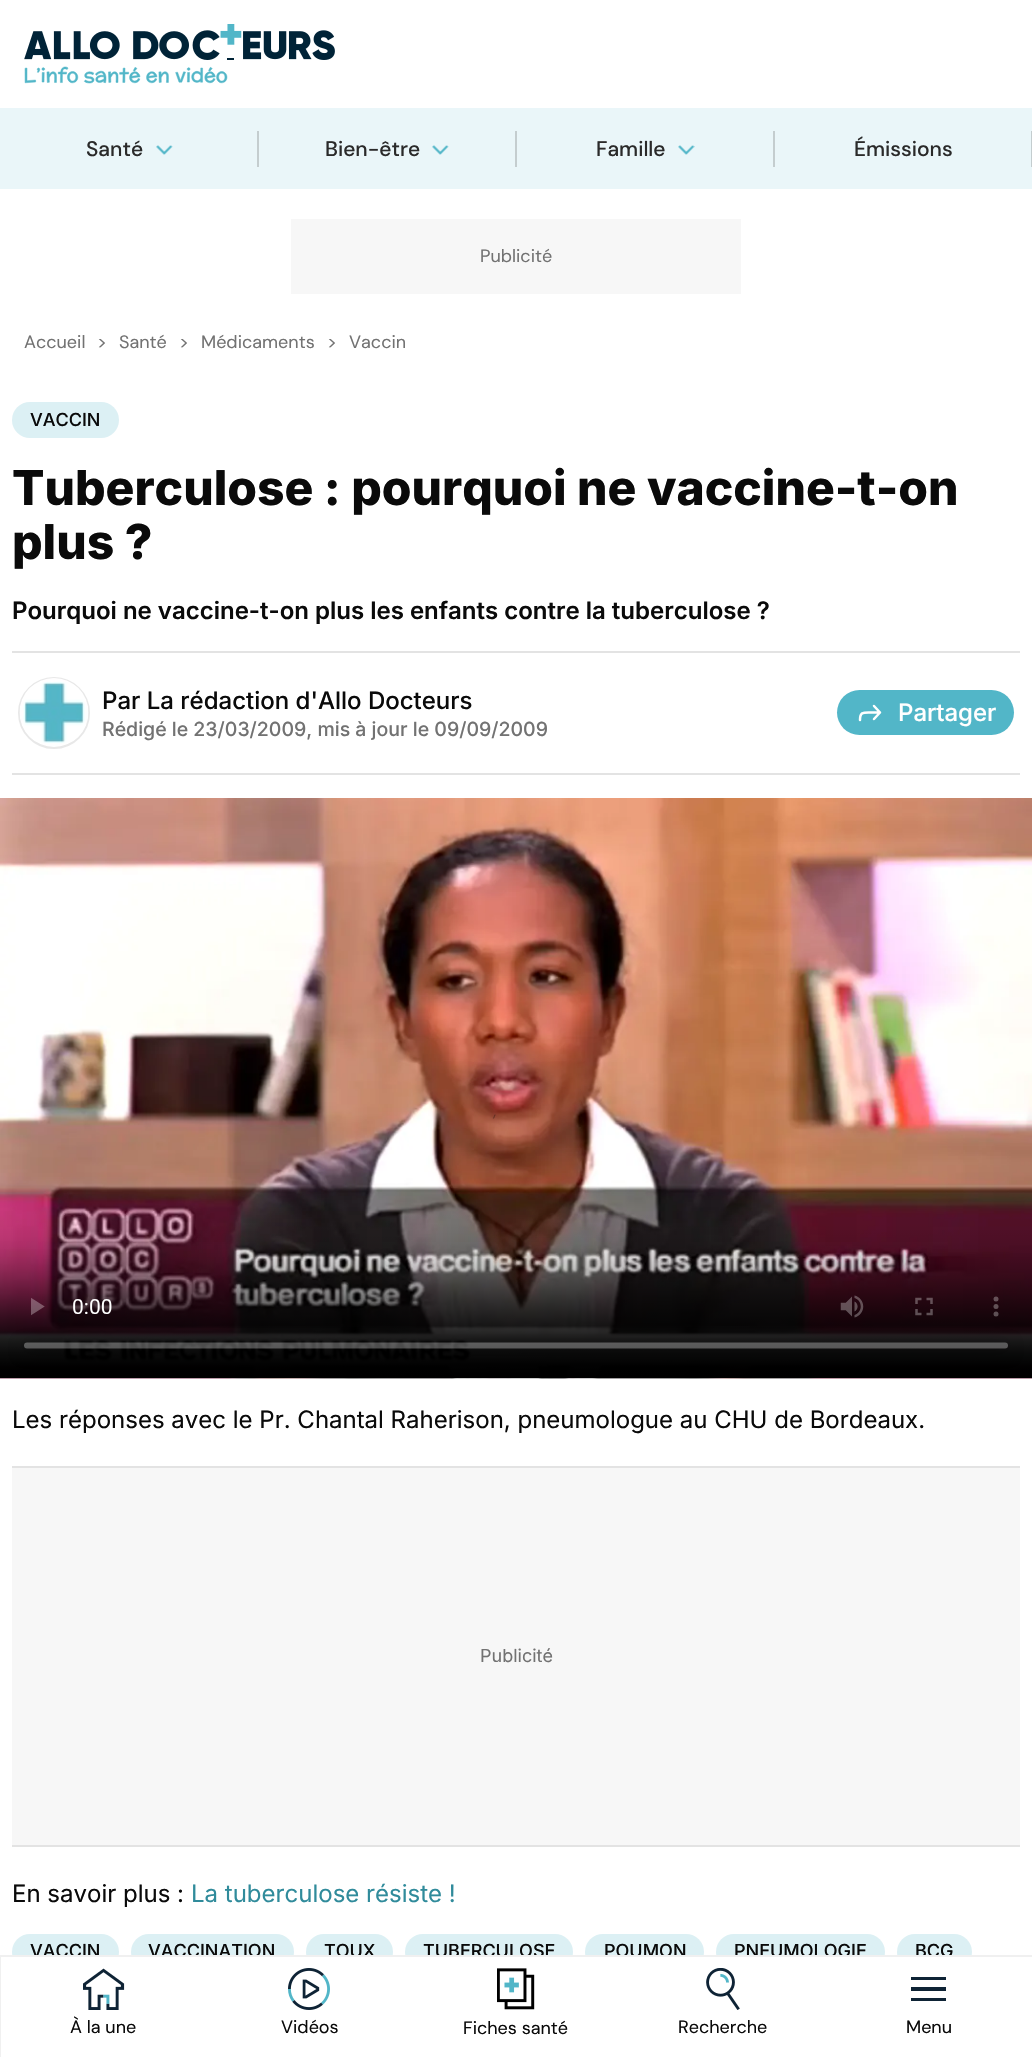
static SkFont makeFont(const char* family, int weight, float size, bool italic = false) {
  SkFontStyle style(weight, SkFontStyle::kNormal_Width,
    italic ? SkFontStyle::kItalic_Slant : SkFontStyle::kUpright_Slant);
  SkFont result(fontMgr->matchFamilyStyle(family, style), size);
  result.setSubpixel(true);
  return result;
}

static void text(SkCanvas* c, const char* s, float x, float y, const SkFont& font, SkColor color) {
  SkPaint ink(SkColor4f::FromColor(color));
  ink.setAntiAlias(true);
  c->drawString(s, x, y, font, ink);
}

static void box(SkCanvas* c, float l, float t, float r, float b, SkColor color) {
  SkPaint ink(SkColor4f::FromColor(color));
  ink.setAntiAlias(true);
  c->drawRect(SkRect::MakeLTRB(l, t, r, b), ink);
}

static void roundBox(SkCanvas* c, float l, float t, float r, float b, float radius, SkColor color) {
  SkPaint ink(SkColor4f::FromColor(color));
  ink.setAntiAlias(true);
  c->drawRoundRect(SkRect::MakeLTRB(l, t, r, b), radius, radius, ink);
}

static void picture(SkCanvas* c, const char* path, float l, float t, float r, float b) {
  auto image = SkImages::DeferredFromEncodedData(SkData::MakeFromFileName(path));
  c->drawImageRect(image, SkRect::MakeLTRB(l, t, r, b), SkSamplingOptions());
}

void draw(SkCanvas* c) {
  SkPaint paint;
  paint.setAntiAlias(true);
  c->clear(0xffffffff);
  picture(c, "img_01.png", 24, 24, 335, 60);
  picture(c, "img_02.png", 24, 66, 228, 84);
  box(c, 0, 108, 1032, 189, 0xffeaf6f9);
  SkFont face1 = makeFont("DM Sans", 500, 21);
  text(c, "Santé", 86, 156, face1, 0xff2a2a2a);
  picture(c, "img_03.png", 156, 145, 173, 155);
  box(c, 257, 131, 259, 167, 0xffc4cdcf);
  text(c, "Bien-être", 325, 156, face1, 0xff2a2a2a);
  picture(c, "img_03.png", 432, 145, 449, 155);
  box(c, 515, 131, 517, 167, 0xffc4cdcf);
  text(c, "Famille", 596, 156, face1, 0xff2a2a2a);
  picture(c, "img_04.png", 678, 145, 695, 155);
  box(c, 773, 131, 775, 167, 0xffc4cdcf);
  text(c, "Émissions", 854, 156, face1, 0xff2a2a2a);
  box(c, 1031, 131, 1032, 167, 0xffc4cdcf);
  roundBox(c, 12, 1934, 119, 1970, 18, 0xffdcf0f4);
  SkFont face2 = makeFont("Inter", 500, 18);
  text(c, "VACCIN", 30, 1957, face2, 0xff0a0a0a);
  roundBox(c, 131, 1934, 294, 1970, 18, 0xffdcf0f4);
  text(c, "VACCINATION", 148, 1957, face2, 0xff0a0a0a);
  roundBox(c, 306, 1934, 393, 1970, 18, 0xffdcf0f4);
  text(c, "TOUX", 324, 1957, face2, 0xff0a0a0a);
  roundBox(c, 405, 1934, 573, 1970, 18, 0xffdcf0f4);
  text(c, "TUBERCULOSE", 423, 1957, face2, 0xff0a0a0a);
  roundBox(c, 585, 1934, 704, 1970, 18, 0xffdcf0f4);
  text(c, "POUMON", 604, 1957, face2, 0xff0a0a0a);
  roundBox(c, 716, 1934, 885, 1970, 18, 0xffdcf0f4);
  text(c, "PNEUMOLOGIE", 734, 1957, face2, 0xff0a0a0a);
  roundBox(c, 897, 1934, 972, 1970, 18, 0xffdcf0f4);
  text(c, "BCG", 915, 1957, face2, 0xff0a0a0a);
  box(c, 12, 1957, 972, 1970, 0xffffffff);
  paint.setStyle(SkPaint::kStroke_Style);
  paint.setStrokeWidth(2);
  paint.setColor(0xfff0f0f0);
  c->drawRect(SkRect::MakeLTRB(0, 1956, 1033, 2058), paint);
  picture(c, "img_05.png", 83, 1968, 125, 2010);
  SkFont face3 = makeFont("DM Sans", 400, 18);
  text(c, "À la une", 70, 2033, face3, 0xff0a0a0a);
  picture(c, "img_06.png", 288, 1968, 330, 2010);
  text(c, "Vidéos", 281, 2033, face3, 0xff0a0a0a);
  picture(c, "img_07.png", 497, 1968, 535, 2010);
  text(c, "Fiches santé", 463, 2034, face3, 0xff0a0a0a);
  picture(c, "img_08.png", 706, 1968, 740, 2010);
  text(c, "Recherche", 678, 2033, face3, 0xff0a0a0a);
  paint.setStyle(SkPaint::kFill_Style);
  paint.setColor(0xff0e2335);
  c->drawPath(SkPathBuilder().moveTo(911, 1977).lineTo(911, 1980).lineTo(946, 1980).lineTo(946, 1977).close().moveTo(911, 1987).lineTo(911, 1991).lineTo(946, 1991).lineTo(946, 1987).close().moveTo(911, 1998).lineTo(911, 2001).lineTo(946, 2001).lineTo(946, 1998).close().detach(), paint);
  text(c, "Menu", 906, 2033, face3, 0xff0a0a0a);
  box(c, 291, 219, 741, 294, 0xfff7f7f7);
  text(c, "Publicité", 480, 262, face3, 0xff727272);
  text(c, "Accueil", 24, 348, face3, 0xff727272);
  text(c, ">", 97, 348, face3, 0xff727272);
  text(c, "Santé", 119, 348, face3, 0xff727272);
  text(c, ">", 179, 348, face3, 0xff727272);
  text(c, "Médicaments", 201, 348, face3, 0xff727272);
  text(c, ">", 327, 348, face3, 0xff727272);
  text(c, "Vaccin", 349, 348, face3, 0xff727272);
  roundBox(c, 12, 402, 119, 438, 18, 0xffdcf0f4);
  text(c, "VACCIN", 30, 426, face2, 0xff0a0a0a);
  SkFont face4 = makeFont("Inter", 800, 48);
  text(c, "Tuberculose : pourquoi ne vaccine-t-on", 12, 505, face4, 0xff0a0a0a);
  text(c, "plus ?", 12, 559, face4, 0xff0a0a0a);
  SkFont face5 = makeFont("Inter", 600, 24);
  text(c, "Pourquoi ne vaccine-t-on plus les enfants contre la tuberculose ?", 12, 619, face5, 0xff0a0a0a);
  box(c, 12, 651, 1020, 653, 0xffe3e3e3);
  box(c, 12, 773, 1020, 775, 0xffe3e3e3);
  paint.setColor(0xffe3e3e3);
  c->drawCircle(54, 713, 35, paint);
  paint.setStyle(SkPaint::kStroke_Style);
  paint.setColor(0xffe8e8e8);
  c->drawCircle(54, 713, 35, paint);
  picture(c, "img_09.png", 19, 678, 89, 747);
  SkFont face6 = makeFont("Inter", 500, 24);
  text(c, "Par La rédaction d'Allo Docteurs", 102, 709, face6, 0xff0a0a0a);
  SkFont face7 = makeFont("Inter", 500, 19.5f);
  text(c, "Rédigé le 23/03/2009, mis à jour le 09/09/2009", 102, 736, face7, 0xff727272);
  roundBox(c, 837, 690, 1014, 735, 22.5f, 0xff52b6c8);
  paint.setStrokeWidth(2.5f);
  paint.setStrokeCap(SkPaint::kRound_Cap);
  paint.setStrokeJoin(SkPaint::kRound_Join);
  paint.setColor(0xffffffff);
  c->drawPath(SkPathBuilder().moveTo(874, 719).lineTo(880, 712.5f).lineTo(874, 706).moveTo(860, 720).cubicTo(860, 712, 863, 712.5f, 870, 712.5f).lineTo(880, 712.5f).detach(), paint);
  text(c, "Partager", 898, 721, face6, 0xffffffff);
  box(c, 0, 1378, 1032, 1379, 0xffe3e3e3);
  picture(c, "img_10.png", 0, 798, 1032, 1379);
  SkFont face8 = makeFont("Inter", 400, 24);
  text(c, "Les réponses avec le Pr. Chantal Raherison, pneumologue au CHU de Bordeaux.", 12, 1428, face8, 0xff0a0a0a);
  box(c, 12, 1468, 1020, 1845, 0xfff7f7f7);
  box(c, 12, 1466, 1020, 1468, 0xffe3e3e3);
  box(c, 12, 1845, 1020, 1847, 0xffe3e3e3);
  SkFont face9 = makeFont("Inter", 400, 18);
  text(c, "Publicité", 480, 1662, face9, 0xff727272);
  text(c, "En savoir plus :", 12, 1902, face8, 0xff0a0a0a);
  text(c, "La tuberculose résiste !", 191, 1902, face8, 0xff308b9b);
}
